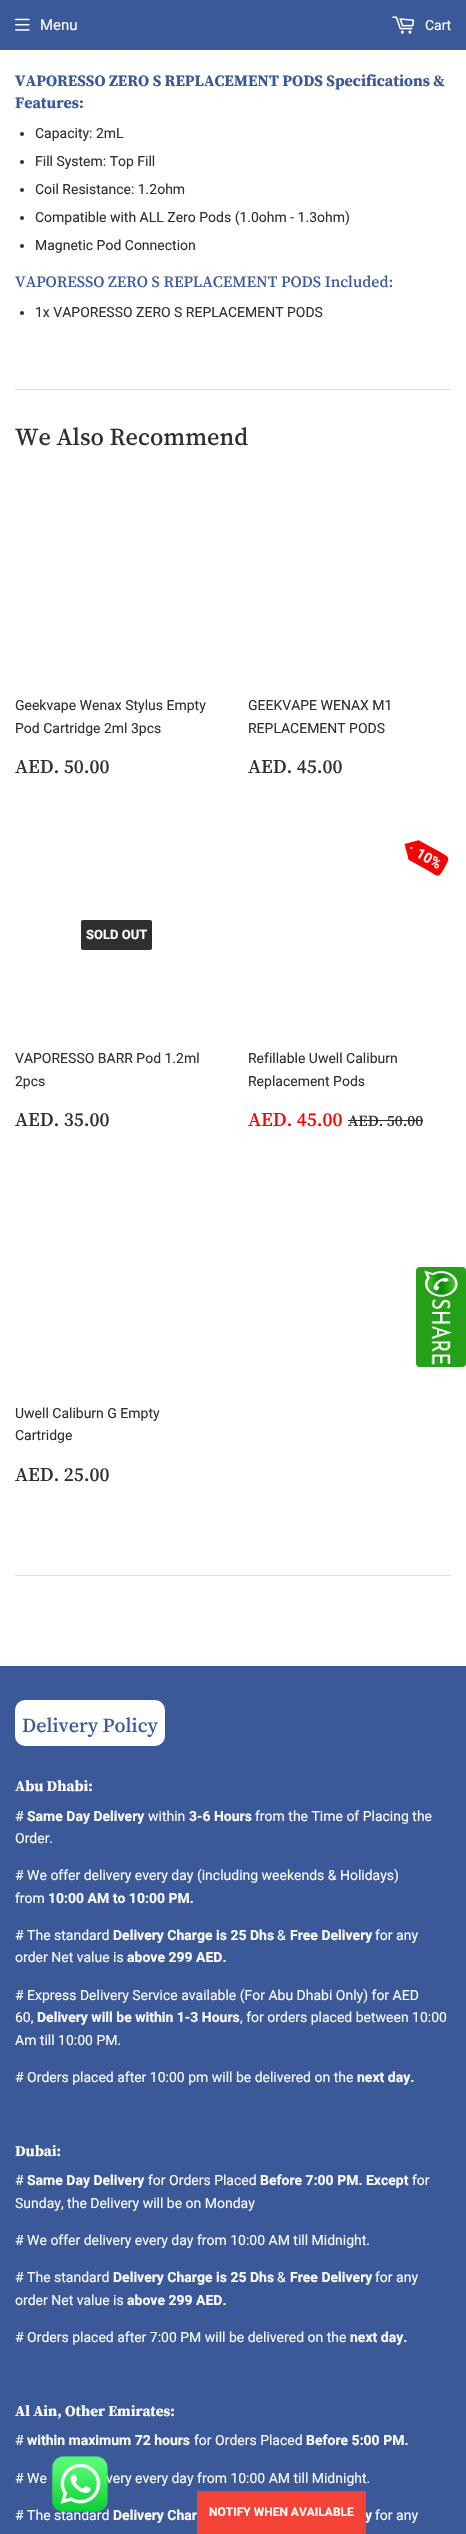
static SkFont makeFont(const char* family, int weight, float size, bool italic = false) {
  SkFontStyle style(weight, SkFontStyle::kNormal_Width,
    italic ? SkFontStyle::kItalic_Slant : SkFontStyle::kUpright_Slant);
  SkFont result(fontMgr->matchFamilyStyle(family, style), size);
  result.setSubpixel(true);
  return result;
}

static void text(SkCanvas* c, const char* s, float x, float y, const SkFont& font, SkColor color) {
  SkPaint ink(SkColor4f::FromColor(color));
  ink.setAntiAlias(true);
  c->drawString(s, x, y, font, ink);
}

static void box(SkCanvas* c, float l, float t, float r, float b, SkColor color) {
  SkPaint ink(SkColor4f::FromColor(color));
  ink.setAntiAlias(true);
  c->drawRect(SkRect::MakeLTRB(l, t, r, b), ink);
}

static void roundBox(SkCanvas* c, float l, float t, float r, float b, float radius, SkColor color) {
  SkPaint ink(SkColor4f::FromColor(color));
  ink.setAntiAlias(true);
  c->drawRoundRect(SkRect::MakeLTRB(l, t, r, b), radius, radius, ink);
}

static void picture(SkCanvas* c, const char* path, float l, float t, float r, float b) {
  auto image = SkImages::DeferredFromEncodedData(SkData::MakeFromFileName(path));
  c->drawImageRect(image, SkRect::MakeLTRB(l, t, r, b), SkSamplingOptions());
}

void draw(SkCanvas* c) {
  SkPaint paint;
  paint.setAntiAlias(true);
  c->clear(0xffffffff);
  box(c, 0, 0, 466, 50, 0xff3b5998);
  picture(c, "img_01.png", 15, 18, 30, 31);
  SkFont face1 = makeFont("Roboto", 400, 15);
  text(c, "Menu", 40, 30, face1, 0xfffafafa);
  picture(c, "img_02.png", 392, 16, 415, 34);
  SkFont face2 = makeFont("Roboto", 400, 14);
  text(c, "Cart", 425, 30, face2, 0xfffafafa);
  SkFont face3 = makeFont("Source Serif 4", 700, 15.85f);
  text(c, "VAPORESSO ZERO S REPLACEMENT PODS Specifications &", 15, 86, face3, 0xff3b5998);
  text(c, "Features:", 15, 108, face3, 0xff3b5998);
  paint.setColor(0xff2f2f2f);
  c->drawCircle(22, 134, 2, paint);
  text(c, "Capacity: 2mL", 35, 138, face2, 0xff2f2f2f);
  c->drawCircle(22, 162, 2, paint);
  text(c, "Fill System: Top Fill", 35, 166, face2, 0xff2f2f2f);
  c->drawCircle(22, 190, 2, paint);
  text(c, "Coil Resistance: 1.2ohm", 35, 194, face2, 0xff2f2f2f);
  c->drawCircle(22, 218, 2, paint);
  text(c, "Compatible with ALL Zero Pods (1.0ohm - 1.3ohm)", 35, 222, face2, 0xff2f2f2f);
  c->drawCircle(22, 246, 2, paint);
  text(c, "Magnetic Pod Connection", 35, 250, face2, 0xff2f2f2f);
  SkFont face4 = makeFont("Source Serif 4", 500, 15.85f);
  text(c, "VAPORESSO ZERO S REPLACEMENT PODS Included:", 15, 287, face4, 0xff3b5998);
  c->drawCircle(22, 313, 2, paint);
  text(c, "1x VAPORESSO ZERO S REPLACEMENT PODS", 35, 317, face2, 0xff2f2f2f);
  box(c, 15, 389, 451, 390, 0xffdedede);
  SkFont face5 = makeFont("Source Serif 4", 500, 24.25f);
  text(c, "We Also Recommend", 15, 445, face5, 0xff2f2f2f);
  text(c, "Geekvape Wenax Stylus Empty", 15, 710, face2, 0xff2f2f2f);
  text(c, "Pod Cartridge 2ml 3pcs", 15, 733, face2, 0xff2f2f2f);
  SkFont face6 = makeFont("Source Serif 4", 500, 19.5f);
  text(c, "AED. 50.00", 15, 773, face6, 0xff2f2f2f);
  text(c, "GEEKVAPE WENAX M1", 248, 710, face2, 0xff2f2f2f);
  text(c, "REPLACEMENT PODS", 248, 733, face2, 0xff2f2f2f);
  text(c, "AED. 45.00", 248, 773, face6, 0xff2f2f2f);
  roundBox(c, 81, 920, 152, 950, 2, 0xff2f2f2f);
  SkFont face7 = makeFont("Roboto", 700, 13);
  text(c, "SOLD OUT", 86, 939, face7, 0xfffafafa);
  text(c, "VAPORESSO BARR Pod 1.2ml", 15, 1063, face2, 0xff2f2f2f);
  text(c, "2pcs", 15, 1086, face2, 0xff2f2f2f);
  text(c, "AED. 35.00", 15, 1126, face6, 0xff2f2f2f);
  paint.setColor(0xfff30505);
  c->drawPath(SkPathBuilder().moveTo(420, 841).lineTo(442, 853).cubicTo(451, 858, 449, 859, 445, 867).cubicTo(438, 879, 439, 877, 427, 870).lineTo(409, 860).cubicTo(406, 858, 412, 851, 413, 849).cubicTo(414, 847, 417, 839, 420, 841).close().detach(), paint);
  SkFont face8 = makeFont("Roboto", 700, 14);
  c->save();
  c->rotate(30, 415, 856);
  text(c, "10%", 415, 856, face8, 0xfffafafa);
  c->restore();
  c->drawPath(SkPathBuilder().moveTo(419.5f, 840).lineTo(408.5f, 859).lineTo(404.5f, 844).close().detach(), paint);
  paint.setColor(0xffffffff);
  c->drawPath(SkPathBuilder().moveTo(412, 847).cubicTo(413, 848, 412, 849.5f, 411, 849).cubicTo(409.5f, 848.5f, 410.5f, 846.5f, 412, 847).close().detach(), paint);
  text(c, "Refillable Uwell Caliburn", 248, 1063, face2, 0xff2f2f2f);
  text(c, "Replacement Pods", 248, 1086, face2, 0xff2f2f2f);
  text(c, "AED. 45.00", 248, 1126, face6, 0xffff0000);
  SkFont face9 = makeFont("Source Serif 4", 500, 15.5f);
  text(c, "AED. 50.00", 348, 1126, face9, 0xff2f2f2f);
  box(c, 348, 1120, 423, 1121, 0xff2f2f2f);
  text(c, "Uwell Caliburn G Empty", 15, 1418, face2, 0xff2f2f2f);
  text(c, "Cartridge", 15, 1440, face2, 0xff2f2f2f);
  text(c, "AED. 25.00", 15, 1481, face6, 0xff2f2f2f);
  box(c, 15, 1575, 451, 1576, 0xffdedede);
  picture(c, "img_03.png", 416, 1267, 466, 1367);
  box(c, 0, 1666, 466, 2534, 0xff3b5998);
  roundBox(c, 15, 1700, 165, 1746, 10, 0xffffffff);
  SkFont face10 = makeFont("Source Serif 4", 500, 20);
  text(c, "Delivery Policy", 22, 1732, face10, 0xff3b5998);
  SkFont face11 = makeFont("Source Serif 4", 700, 15);
  text(c, "Abu Dhabi:", 15, 1791, face11, 0xfffafafa);
  text(c, "#", 15, 1821, face2, 0xfffafafa);
  text(c, "Same Day Delivery", 27, 1821, face8, 0xfffafafa);
  text(c, "within", 148, 1821, face2, 0xfffafafa);
  text(c, "3-6 Hours", 189, 1821, face8, 0xfffafafa);
  text(c, "from the Time of Placing the", 255, 1821, face2, 0xfffafafa);
  text(c, "Order.", 15, 1843, face2, 0xfffafafa);
  text(c, "# We offer delivery every day (including weekends & Holidays)", 15, 1880, face2, 0xfffafafa);
  text(c, "from", 15, 1903, face2, 0xfffafafa);
  text(c, "10:00 AM to 10:00 PM.", 48, 1903, face8, 0xfffafafa);
  text(c, "# The standard", 15, 1940, face2, 0xfffafafa);
  text(c, "Delivery Charge is 25 Dhs", 113, 1940, face8, 0xfffafafa);
  text(c, "&", 277, 1940, face2, 0xfffafafa);
  text(c, "Free Delivery", 290, 1940, face8, 0xfffafafa);
  text(c, "for any", 375, 1940, face2, 0xfffafafa);
  text(c, "order Net value is", 15, 1962, face2, 0xfffafafa);
  text(c, "above 299 AED.", 127, 1962, face8, 0xfffafafa);
  text(c, "# Express Delivery Service available (For Abu Dhabi Only) for AED", 15, 2000, face2, 0xfffafafa);
  text(c, "60,", 15, 2022, face2, 0xfffafafa);
  text(c, "Delivery will be within 1-3 Hours", 37, 2022, face8, 0xfffafafa);
  text(c, ", for orders placed between 10:00", 240, 2022, face2, 0xfffafafa);
  text(c, "Am till 10:00 PM.", 15, 2045, face2, 0xfffafafa);
  text(c, "# Orders placed after 10:00 pm will be delivered on the", 15, 2082, face2, 0xfffafafa);
  text(c, "next day.", 357, 2082, face8, 0xfffafafa);
  text(c, "Dubai:", 15, 2156, face11, 0xfffafafa);
  text(c, "#", 15, 2185, face2, 0xfffafafa);
  text(c, "Same Day Delivery", 27, 2185, face8, 0xfffafafa);
  text(c, "for Orders Placed", 148, 2185, face2, 0xfffafafa);
  text(c, "Before 7:00 PM. Except", 260, 2185, face8, 0xfffafafa);
  text(c, "for", 412, 2185, face2, 0xfffafafa);
  text(c, "Sunday, the Delivery will be on Monday", 15, 2208, face2, 0xfffafafa);
  text(c, "# We offer delivery every day from 10:00 AM till Midnight.", 15, 2245, face2, 0xfffafafa);
  text(c, "# The standard", 15, 2282, face2, 0xfffafafa);
  text(c, "Delivery Charge is 25 Dhs", 113, 2282, face8, 0xfffafafa);
  text(c, "&", 277, 2282, face2, 0xfffafafa);
  text(c, "Free Delivery", 290, 2282, face8, 0xfffafafa);
  text(c, "for any", 375, 2282, face2, 0xfffafafa);
  text(c, "order Net value is", 15, 2305, face2, 0xfffafafa);
  text(c, "above 299 AED.", 127, 2305, face8, 0xfffafafa);
  text(c, "# Orders placed after 7:00 PM will be delivered on the", 15, 2342, face2, 0xfffafafa);
  text(c, "next day.", 350, 2342, face8, 0xfffafafa);
  text(c, "Al Ain, Other Emirates:", 15, 2416, face11, 0xfffafafa);
  text(c, "#", 15, 2445, face2, 0xfffafafa);
  text(c, "within maximum 72 hours", 27, 2445, face8, 0xfffafafa);
  text(c, "for Orders Placed", 194, 2445, face2, 0xfffafafa);
  text(c, "Before 5:00 PM.", 306, 2445, face8, 0xfffafafa);
  text(c, "# We", 15, 2483, face2, 0xfffafafa);
  text(c, "very every day from 10:00 AM till Midnight.", 106, 2483, face2, 0xfffafafa);
  text(c, "# The standard", 15, 2520, face2, 0xfffafafa);
  text(c, "Delivery Char", 113, 2520, face8, 0xfffafafa);
  text(c, "y", 365, 2520, face8, 0xfffafafa);
  text(c, "for any", 375, 2520, face2, 0xfffafafa);
  picture(c, "img_04.png", 51, 2456, 108, 2513);
  box(c, 197, 2491, 366, 2534, 0xfff44336);
  SkFont face12 = makeFont("Roboto", 700, 12);
  text(c, "NOTIFY WHEN AVAILABLE", 209, 2516, face12, 0xfffafafa);
}
